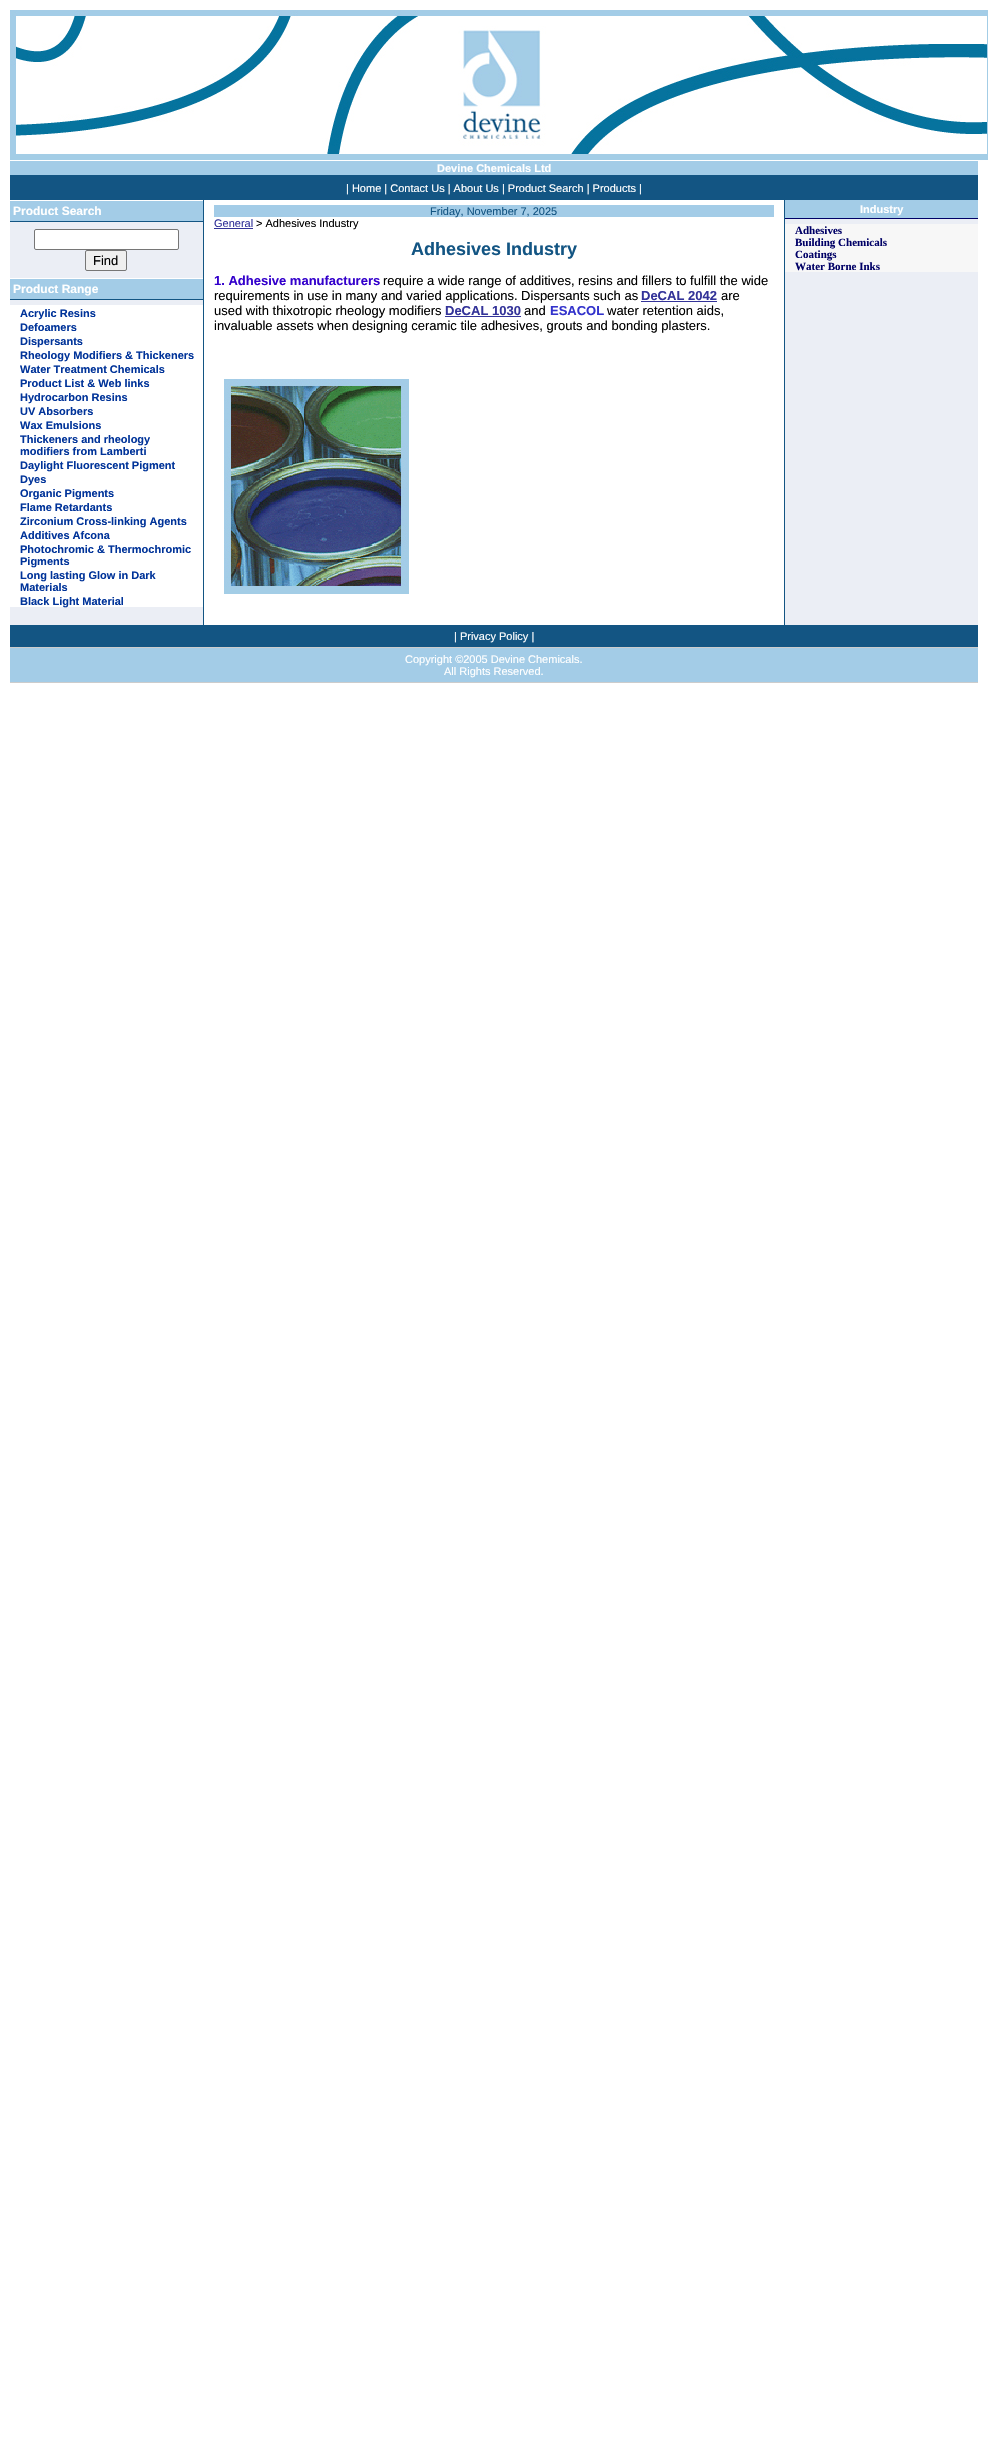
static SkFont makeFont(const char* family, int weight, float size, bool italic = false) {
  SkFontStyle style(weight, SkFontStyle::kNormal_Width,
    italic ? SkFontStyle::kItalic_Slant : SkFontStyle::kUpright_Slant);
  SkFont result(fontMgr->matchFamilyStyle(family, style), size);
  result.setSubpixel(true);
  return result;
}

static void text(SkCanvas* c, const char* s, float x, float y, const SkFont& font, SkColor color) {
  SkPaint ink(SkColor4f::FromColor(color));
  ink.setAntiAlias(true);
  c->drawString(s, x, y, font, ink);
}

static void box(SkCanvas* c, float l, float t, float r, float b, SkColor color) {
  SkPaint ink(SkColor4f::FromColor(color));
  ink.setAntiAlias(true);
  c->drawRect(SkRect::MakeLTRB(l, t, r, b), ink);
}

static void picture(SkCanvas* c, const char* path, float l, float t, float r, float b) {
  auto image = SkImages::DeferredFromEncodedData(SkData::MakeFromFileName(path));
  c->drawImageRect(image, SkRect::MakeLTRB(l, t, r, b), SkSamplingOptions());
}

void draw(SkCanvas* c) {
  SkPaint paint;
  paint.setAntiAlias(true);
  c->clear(0xffffffff);
  picture(c, "img_01.png", 10, 10, 988, 160);
  box(c, 10, 161, 978, 175, 0xffa3cce7);
  SkFont face1 = makeFont("Liberation Sans", 700, 11);
  text(c, "Devine Chemicals Ltd", 437, 172, face1, 0xffffffff);
  box(c, 10, 175, 978, 200, 0xff135583);
  SkFont face2 = makeFont("Liberation Sans", 400, 11);
  text(c, "| Home | Contact Us | About Us | Product Search | Products |", 346, 192, face2, 0xffffffff);
  box(c, 10, 222, 203, 625, 0xffebeef5);
  box(c, 203, 200, 204, 625, 0xff135583);
  box(c, 10, 221, 203, 222, 0xff135583);
  box(c, 10, 201, 203, 221, 0xffa3cce7);
  SkFont face3 = makeFont("Liberation Sans", 700, 12);
  text(c, "Product Search", 13, 215, face3, 0xffffffff);
  paint.setColor(0xffffffff);
  c->drawRoundRect(SkRect::MakeLTRB(34.5f, 229.5f, 178.5f, 249.5f), 1.5f, 1.5f, paint);
  paint.setStyle(SkPaint::kStroke_Style);
  paint.setStrokeWidth(1);
  paint.setColor(0xff767676);
  c->drawRoundRect(SkRect::MakeLTRB(34.5f, 229.5f, 178.5f, 249.5f), 1.5f, 1.5f, paint);
  paint.setStyle(SkPaint::kFill_Style);
  paint.setColor(0xffefefef);
  c->drawRoundRect(SkRect::MakeLTRB(85.5f, 250.5f, 126.5f, 270.5f), 1.5f, 1.5f, paint);
  paint.setStyle(SkPaint::kStroke_Style);
  paint.setColor(0xff767676);
  c->drawRoundRect(SkRect::MakeLTRB(85.5f, 250.5f, 126.5f, 270.5f), 1.5f, 1.5f, paint);
  SkFont face4 = makeFont("Liberation Sans", 400, 13);
  text(c, "Find", 93, 265, face4, 0xff000000);
  box(c, 10, 278, 203, 279, 0xffffffff);
  box(c, 10, 299, 203, 300, 0xff135583);
  box(c, 10, 279, 203, 299, 0xffa3cce7);
  text(c, "Product Range", 13, 293, face3, 0xffffffff);
  box(c, 10, 305, 203, 607, 0xffffffff);
  text(c, "Acrylic Resins", 20, 317, face1, 0xff003399);
  text(c, "Defoamers", 20, 331, face1, 0xff003399);
  text(c, "Dispersants", 20, 345, face1, 0xff003399);
  text(c, "Rheology Modifiers & Thickeners", 20, 359, face1, 0xff003399);
  text(c, "Water Treatment Chemicals", 20, 373, face1, 0xff003399);
  text(c, "Product List & Web links", 20, 387, face1, 0xff003399);
  text(c, "Hydrocarbon Resins", 20, 401, face1, 0xff003399);
  text(c, "UV Absorbers", 20, 415, face1, 0xff003399);
  text(c, "Wax Emulsions", 20, 429, face1, 0xff003399);
  text(c, "Thickeners and rheology", 20, 443, face1, 0xff003399);
  text(c, "modifiers from Lamberti", 20, 455, face1, 0xff003399);
  text(c, "Daylight Fluorescent Pigment", 20, 469, face1, 0xff003399);
  text(c, "Dyes", 20, 483, face1, 0xff003399);
  text(c, "Organic Pigments", 20, 497, face1, 0xff003399);
  text(c, "Flame Retardants", 20, 511, face1, 0xff003399);
  text(c, "Zirconium Cross-linking Agents", 20, 525, face1, 0xff003399);
  text(c, "Additives Afcona", 20, 539, face1, 0xff003399);
  text(c, "Photochromic & Thermochromic", 20, 553, face1, 0xff003399);
  text(c, "Pigments", 20, 565, face1, 0xff003399);
  text(c, "Long lasting Glow in Dark", 20, 579, face1, 0xff003399);
  text(c, "Materials", 20, 591, face1, 0xff003399);
  text(c, "Black Light Material", 20, 605, face1, 0xff003399);
  box(c, 214, 205, 774, 217, 0xffa3cce7);
  text(c, "Friday, November 7, 2025", 430, 215, face2, 0xff135583);
  text(c, "General", 214, 227, face2, 0xff333399);
  box(c, 214, 228, 253, 229, 0xff333399);
  text(c, "> Adhesives Industry", 256, 227, face2, 0xff000000);
  SkFont face5 = makeFont("Liberation Sans", 700, 18);
  text(c, "Adhesives Industry", 411, 255, face5, 0xff135583);
  SkFont face6 = makeFont("Liberation Sans", 700, 13);
  text(c, "1. Adhesive manufacturers", 214, 285, face6, 0xff3300cc);
  text(c, "require a wide range of additives, resins and fillers to fulfill the wide", 383, 285, face4, 0xff000000);
  text(c, "requirements in use in many and varied applications. Dispersants such as", 214, 300, face4, 0xff000000);
  text(c, "DeCAL 2042", 641, 300, face6, 0xff333399);
  box(c, 641, 301, 717, 302, 0xff333399);
  text(c, "are", 721, 300, face4, 0xff000000);
  text(c, "used with thixotropic rheology modifiers", 214, 315, face4, 0xff000000);
  text(c, "DeCAL 1030", 445, 315, face6, 0xff333399);
  box(c, 445, 316, 521, 317, 0xff333399);
  text(c, "and", 524, 315, face4, 0xff000000);
  text(c, "ESACOL", 550, 315, face6, 0xff3333cc);
  text(c, "water retention aids,", 607, 315, face4, 0xff000000);
  text(c, "invaluable assets when designing ceramic tile adhesives, grouts and bonding plasters.", 214, 330, face4, 0xff000000);
  picture(c, "img_02.png", 224, 379, 409, 594);
  box(c, 785, 219, 978, 625, 0xffebeef5);
  box(c, 784, 200, 785, 625, 0xff135583);
  box(c, 785, 218, 978, 219, 0xff000066);
  box(c, 785, 200, 978, 218, 0xffa3cce7);
  text(c, "Industry", 860, 213, face1, 0xffffffff);
  box(c, 785, 224, 978, 272, 0xfff7f7f7);
  SkFont face7 = makeFont("Liberation Serif", 700, 11);
  text(c, "Adhesives", 795, 234, face7, 0xff000066);
  text(c, "Building Chemicals", 795, 246, face7, 0xff000066);
  text(c, "Coatings", 795, 258, face7, 0xff000066);
  text(c, "Water Borne Inks", 795, 270, face7, 0xff000066);
  box(c, 10, 625, 978, 647, 0xff135583);
  text(c, "| Privacy Policy |", 454, 640, face2, 0xffffffff);
  box(c, 10, 648, 978, 682, 0xffa3cce7);
  box(c, 10, 647, 978, 648, 0xffcccccc);
  box(c, 10, 682, 978, 683, 0xffcccccc);
  text(c, "Copyright ©2005 Devine Chemicals.", 405, 663, face2, 0xffffffff);
  text(c, "All Rights Reserved.", 444, 675, face2, 0xffffffff);
}
